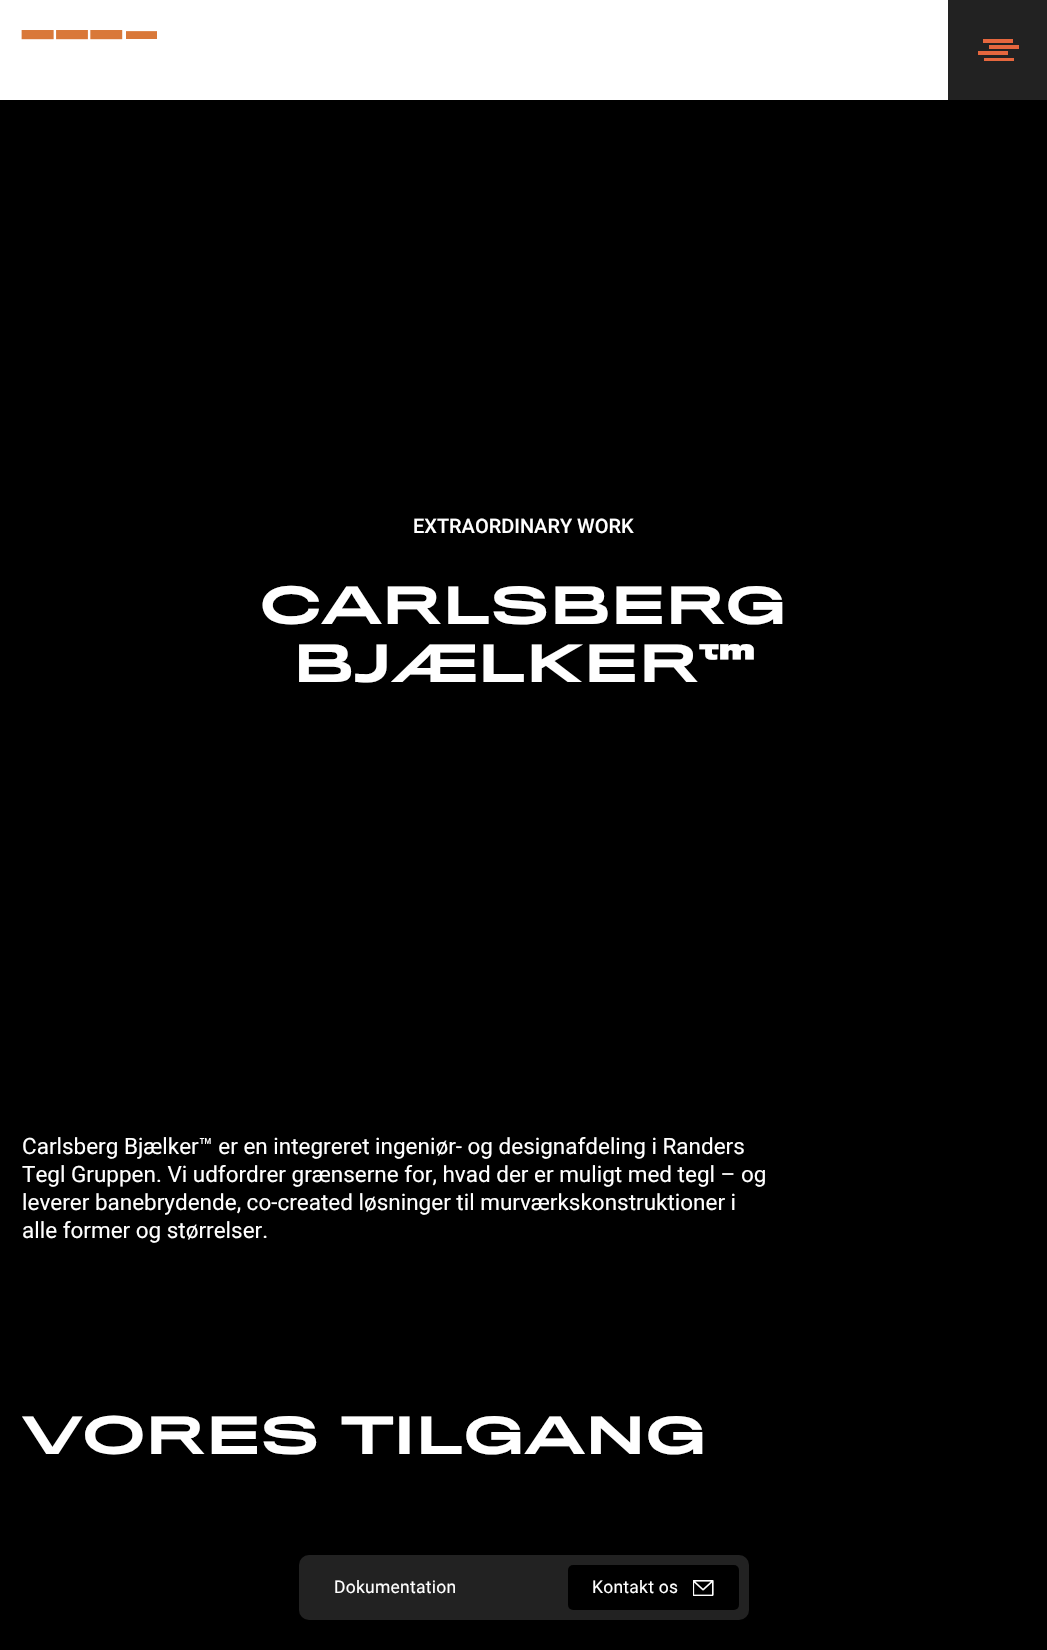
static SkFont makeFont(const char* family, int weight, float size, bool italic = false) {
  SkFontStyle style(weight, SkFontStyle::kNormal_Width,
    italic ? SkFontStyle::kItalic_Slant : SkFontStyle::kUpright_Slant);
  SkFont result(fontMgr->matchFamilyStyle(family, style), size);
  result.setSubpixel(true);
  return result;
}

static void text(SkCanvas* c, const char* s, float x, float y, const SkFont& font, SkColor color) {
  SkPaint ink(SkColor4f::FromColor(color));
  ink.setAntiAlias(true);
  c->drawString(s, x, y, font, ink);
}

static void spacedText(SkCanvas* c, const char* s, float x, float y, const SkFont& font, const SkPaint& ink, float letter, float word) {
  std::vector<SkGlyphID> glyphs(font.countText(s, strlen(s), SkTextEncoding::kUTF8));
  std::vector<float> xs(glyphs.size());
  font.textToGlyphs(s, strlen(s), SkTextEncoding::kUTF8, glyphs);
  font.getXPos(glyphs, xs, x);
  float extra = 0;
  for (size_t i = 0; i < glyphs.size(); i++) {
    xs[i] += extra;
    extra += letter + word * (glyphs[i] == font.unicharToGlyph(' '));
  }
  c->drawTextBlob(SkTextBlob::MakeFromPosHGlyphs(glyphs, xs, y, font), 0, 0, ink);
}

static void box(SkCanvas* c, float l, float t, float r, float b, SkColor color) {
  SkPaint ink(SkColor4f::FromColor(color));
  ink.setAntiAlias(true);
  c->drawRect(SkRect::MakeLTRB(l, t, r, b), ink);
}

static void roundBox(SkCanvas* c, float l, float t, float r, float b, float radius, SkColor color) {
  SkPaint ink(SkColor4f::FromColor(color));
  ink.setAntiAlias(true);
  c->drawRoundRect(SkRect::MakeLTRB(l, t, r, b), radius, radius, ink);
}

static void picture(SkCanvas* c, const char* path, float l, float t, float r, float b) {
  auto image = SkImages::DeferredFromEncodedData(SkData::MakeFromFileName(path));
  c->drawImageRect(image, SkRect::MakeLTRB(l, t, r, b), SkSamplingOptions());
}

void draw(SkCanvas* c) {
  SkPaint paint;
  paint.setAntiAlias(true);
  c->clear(0xff000000);
  box(c, 0, 0, 948, 100, 0xffffffff);
  picture(c, "img_01.png", 21, 30, 157, 40);
  box(c, 948, 0, 1047, 100, 0xff222222);
  box(c, 983, 39, 1013, 43, 0xffe5673e);
  box(c, 989, 45, 1019, 49, 0xffe5673e);
  box(c, 978, 51, 1008, 55, 0xffe5673e);
  box(c, 984, 58, 1014, 61, 0xffe5673e);
  SkFont face1 = makeFont("Roboto", 500, 20);
  text(c, "EXTRAORDINARY WORK", 413, 533, face1, 0xffffffff);
  SkFont face2 = makeFont("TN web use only", 500, 48);
  text(c, "CARLSBERG", 260, 624, face2, 0xffffffff);
  text(c, "BJÆLKER™", 293, 682, face2, 0xffffffff);
  SkFont face3 = makeFont("Roboto", 400, 22.5f);
  text(c, "Carlsberg Bjælker™ er en integreret ingeniør- og designafdeling i Randers", 22, 1154, face3, 0xffffffff);
  text(c, "Tegl Gruppen. Vi udfordrer grænserne for, hvad der er muligt med tegl – og", 22, 1182, face3, 0xffffffff);
  text(c, "leverer banebrydende, co-created løsninger til murværkskonstruktioner i", 22, 1210, face3, 0xffffffff);
  text(c, "alle former og størrelser.", 22, 1238, face3, 0xffffffff);
  text(c, "VORES TILGANG", 22, 1454, face2, 0xffffffff);
  roundBox(c, 299, 1555, 749, 1620, 10, 0xff222222);
  SkFont face4 = makeFont("Roboto", 400, 17.5f);
  paint.setColor(0xffffffff);
  spacedText(c, "Dokumentation", 334, 1593, face4, paint, 0.25f, 0);
  roundBox(c, 568, 1565, 739, 1610, 5, 0xff000000);
  spacedText(c, "Kontakt os", 592, 1593, face4, paint, 0.25f, 0);
  picture(c, "img_02.png", 693, 1580, 714, 1596);
}
